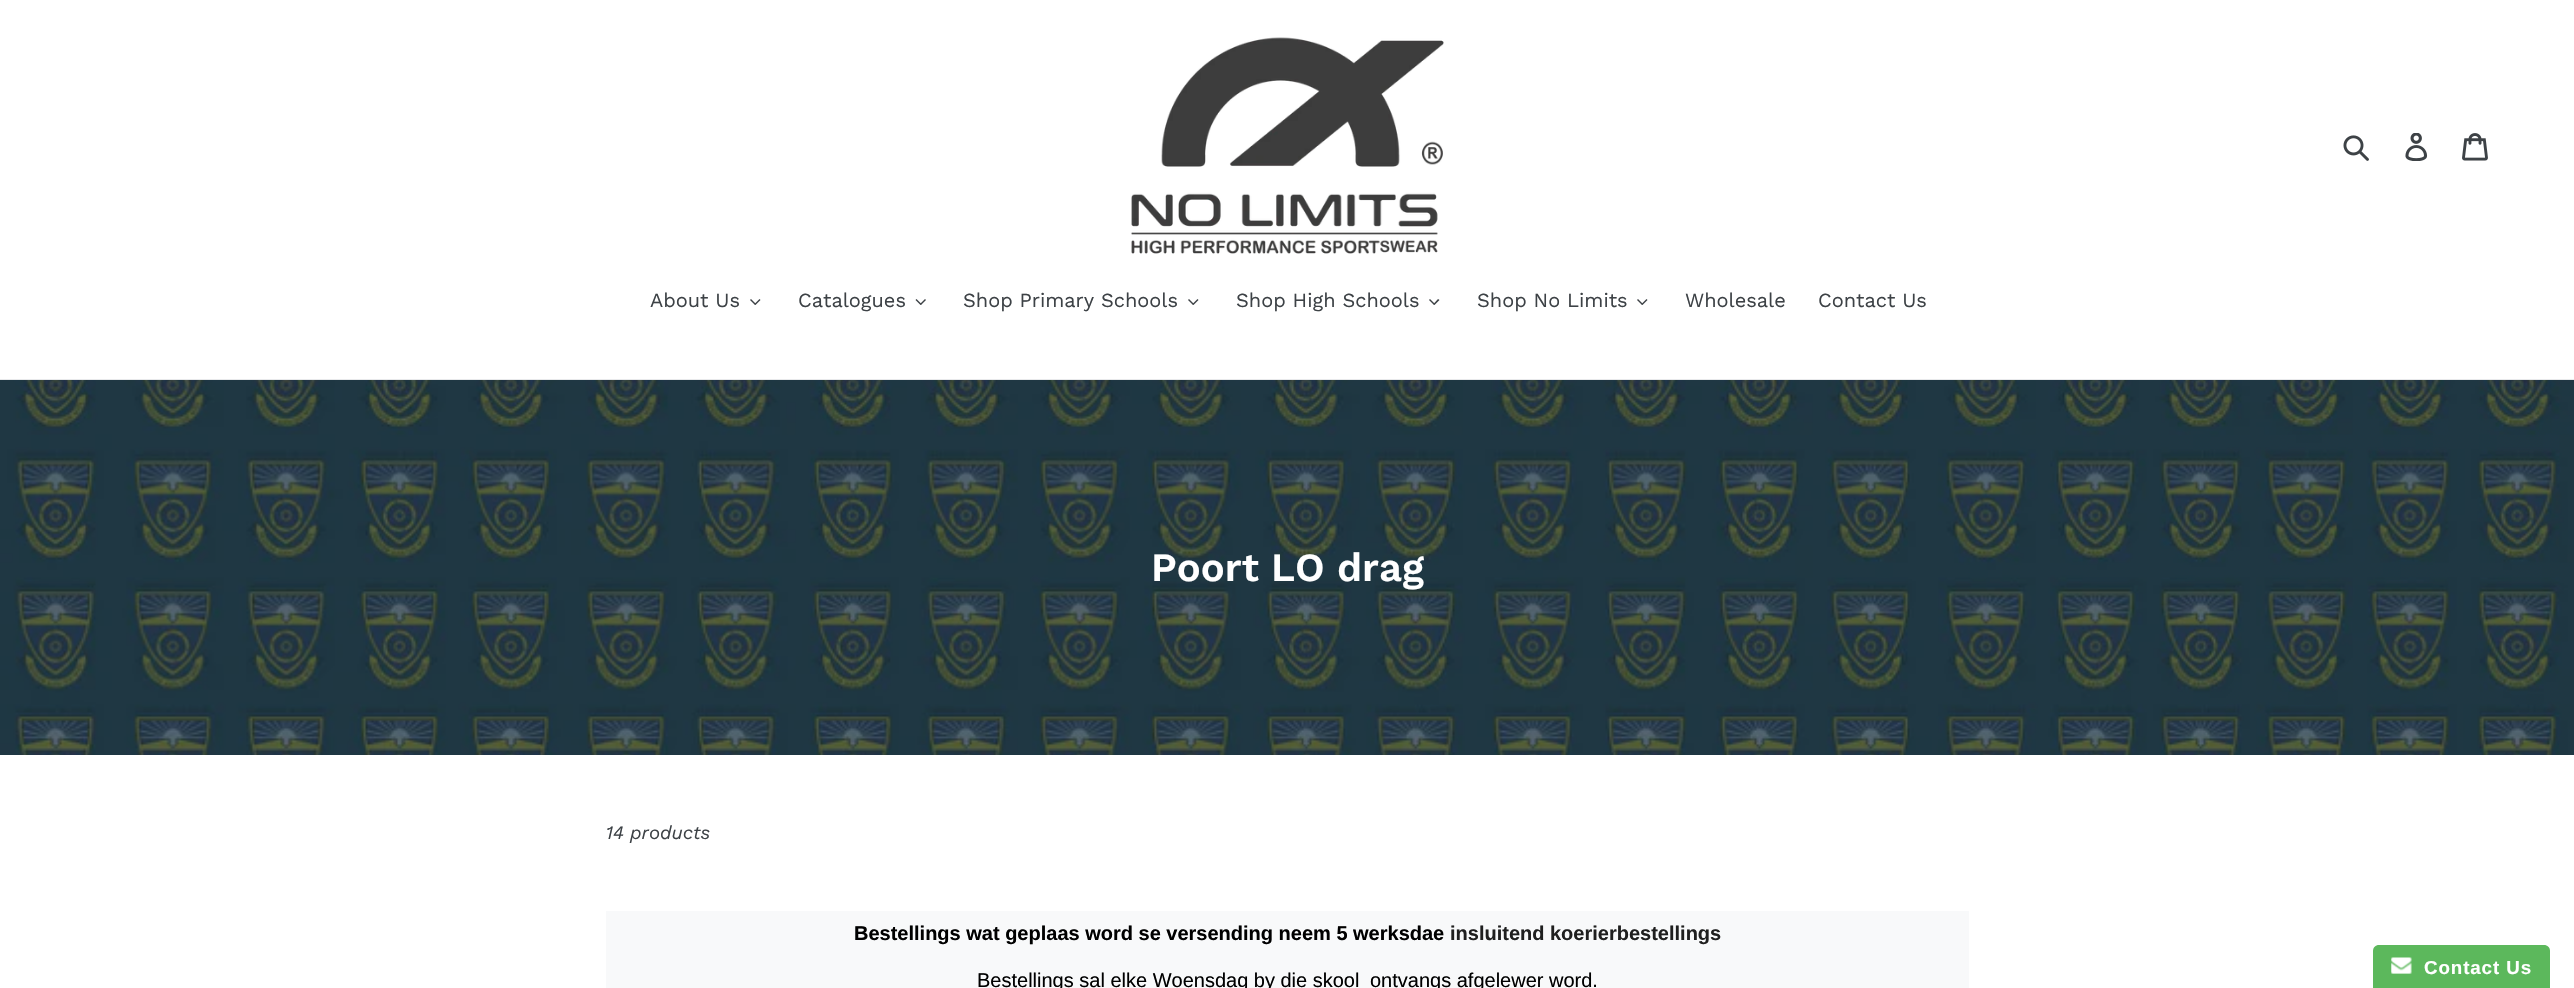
static SkFont makeFont(const char* family, int weight, float size, bool italic = false) {
  SkFontStyle style(weight, SkFontStyle::kNormal_Width,
    italic ? SkFontStyle::kItalic_Slant : SkFontStyle::kUpright_Slant);
  SkFont result(fontMgr->matchFamilyStyle(family, style), size);
  result.setSubpixel(true);
  return result;
}

static void text(SkCanvas* c, const char* s, float x, float y, const SkFont& font, SkColor color) {
  SkPaint ink(SkColor4f::FromColor(color));
  ink.setAntiAlias(true);
  c->drawString(s, x, y, font, ink);
}

static void spacedText(SkCanvas* c, const char* s, float x, float y, const SkFont& font, const SkPaint& ink, float letter, float word) {
  std::vector<SkGlyphID> glyphs(font.countText(s, strlen(s), SkTextEncoding::kUTF8));
  std::vector<float> xs(glyphs.size());
  font.textToGlyphs(s, strlen(s), SkTextEncoding::kUTF8, glyphs);
  font.getXPos(glyphs, xs, x);
  float extra = 0;
  for (size_t i = 0; i < glyphs.size(); i++) {
    xs[i] += extra;
    extra += letter + word * (glyphs[i] == font.unicharToGlyph(' '));
  }
  c->drawTextBlob(SkTextBlob::MakeFromPosHGlyphs(glyphs, xs, y, font), 0, 0, ink);
}

static void box(SkCanvas* c, float l, float t, float r, float b, SkColor color) {
  SkPaint ink(SkColor4f::FromColor(color));
  ink.setAntiAlias(true);
  c->drawRect(SkRect::MakeLTRB(l, t, r, b), ink);
}

static void picture(SkCanvas* c, const char* path, float l, float t, float r, float b) {
  auto image = SkImages::DeferredFromEncodedData(SkData::MakeFromFileName(path));
  c->drawImageRect(image, SkRect::MakeLTRB(l, t, r, b), SkSamplingOptions());
}

void draw(SkCanvas* c) {
  SkPaint paint;
  paint.setAntiAlias(true);
  c->clear(0xffffffff);
  picture(c, "img_01.png", 1131, 37, 1444, 254);
  picture(c, "img_02.png", 2343, 135, 2369, 161);
  picture(c, "img_03.png", 2405, 133, 2428, 161);
  picture(c, "img_04.png", 2462, 133, 2488, 161);
  box(c, 0, 379, 2574, 380, 0xffe8e9eb);
  SkFont face1 = makeFont("Work Sans", 400, 20);
  text(c, "About Us", 650, 307, face1, 0xff3d4246);
  paint.setColor(0xff3d4246);
  c->drawPath(SkPathBuilder().moveTo(759.5f, 299).lineTo(760.5f, 300).lineTo(755.5f, 305).lineTo(754.5f, 304).close().detach(), paint);
  c->drawPath(SkPathBuilder().moveTo(751, 299).lineTo(756, 304).lineTo(755, 305).lineTo(750, 300).close().detach(), paint);
  text(c, "Catalogues", 798, 307, face1, 0xff3d4246);
  c->drawPath(SkPathBuilder().moveTo(925, 299).lineTo(926, 300).lineTo(921, 305).lineTo(920, 304).close().detach(), paint);
  c->drawPath(SkPathBuilder().moveTo(916.5f, 299).lineTo(921.5f, 304).lineTo(920.5f, 305).lineTo(915.5f, 300).close().detach(), paint);
  text(c, "Shop Primary Schools", 963, 307, face1, 0xff3d4246);
  c->drawPath(SkPathBuilder().moveTo(1197.5f, 299).lineTo(1198.5f, 300).lineTo(1193.5f, 305).lineTo(1192.5f, 304).close().detach(), paint);
  c->drawPath(SkPathBuilder().moveTo(1189, 299).lineTo(1194, 304).lineTo(1193, 305).lineTo(1188, 300).close().detach(), paint);
  text(c, "Shop High Schools", 1236, 307, face1, 0xff3d4246);
  c->drawPath(SkPathBuilder().moveTo(1438, 299).lineTo(1439.5f, 300).lineTo(1434.5f, 305).lineTo(1433.5f, 304).close().detach(), paint);
  c->drawPath(SkPathBuilder().moveTo(1430, 299).lineTo(1435, 304).lineTo(1434, 305).lineTo(1429, 300).close().detach(), paint);
  text(c, "Shop No Limits", 1477, 307, face1, 0xff3d4246);
  c->drawPath(SkPathBuilder().moveTo(1646.5f, 299).lineTo(1647.5f, 300).lineTo(1642.5f, 305).lineTo(1641.5f, 304).close().detach(), paint);
  c->drawPath(SkPathBuilder().moveTo(1638, 299).lineTo(1643, 304).lineTo(1642, 305).lineTo(1637, 300).close().detach(), paint);
  text(c, "Wholesale", 1685, 307, face1, 0xff3d4246);
  text(c, "Contact Us", 1818, 307, face1, 0xff3d4246);
  picture(c, "img_05.png", 0, 380, 2574, 755);
  SkFont face2 = makeFont("Work Sans", 600, 40);
  text(c, "Poort LO drag", 1151, 581, face2, 0xffffffff);
  SkFont face3 = makeFont("Work Sans", 400, 18.75f, true);
  text(c, "14 products", 606, 839, face3, 0xff3d4246);
  box(c, 606, 911, 1969, 988, 0xfff8f9fa);
  SkFont face4 = makeFont("Liberation Sans", 700, 20);
  text(c, "Bestellings wat geplaas word se versending neem 5 werksdae", 854, 940, face4, 0xff000000);
  text(c, "insluitend koerierbestellings", 1450, 940, face4, 0xff1f1f1f);
  SkFont face5 = makeFont("Liberation Sans", 400, 20);
  text(c, "Bestellings sal elke Woensdag by die skool", 977, 987, face5, 0xff000000);
  text(c, "ontvangs afgelewer word.", 1370, 987, face5, 0xff000000);
  paint.setColor(0xff5cb85c);
  c->drawPath(SkPathBuilder().moveTo(2379, 945).lineTo(2544, 945).cubicTo(2547.5f, 945, 2550, 947.5f, 2550, 951).lineTo(2550, 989).lineTo(2373, 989).lineTo(2373, 951).cubicTo(2373, 947.5f, 2375.5f, 945, 2379, 945).close().detach(), paint);
  picture(c, "img_06.png", 2391, 957, 2412, 974);
  SkFont face6 = makeFont("Liberation Sans", 700, 18.75f);
  paint.setColor(0xffffffff);
  spacedText(c, "Contact Us", 2424, 974, face6, paint, 0.9f, 0);
}
